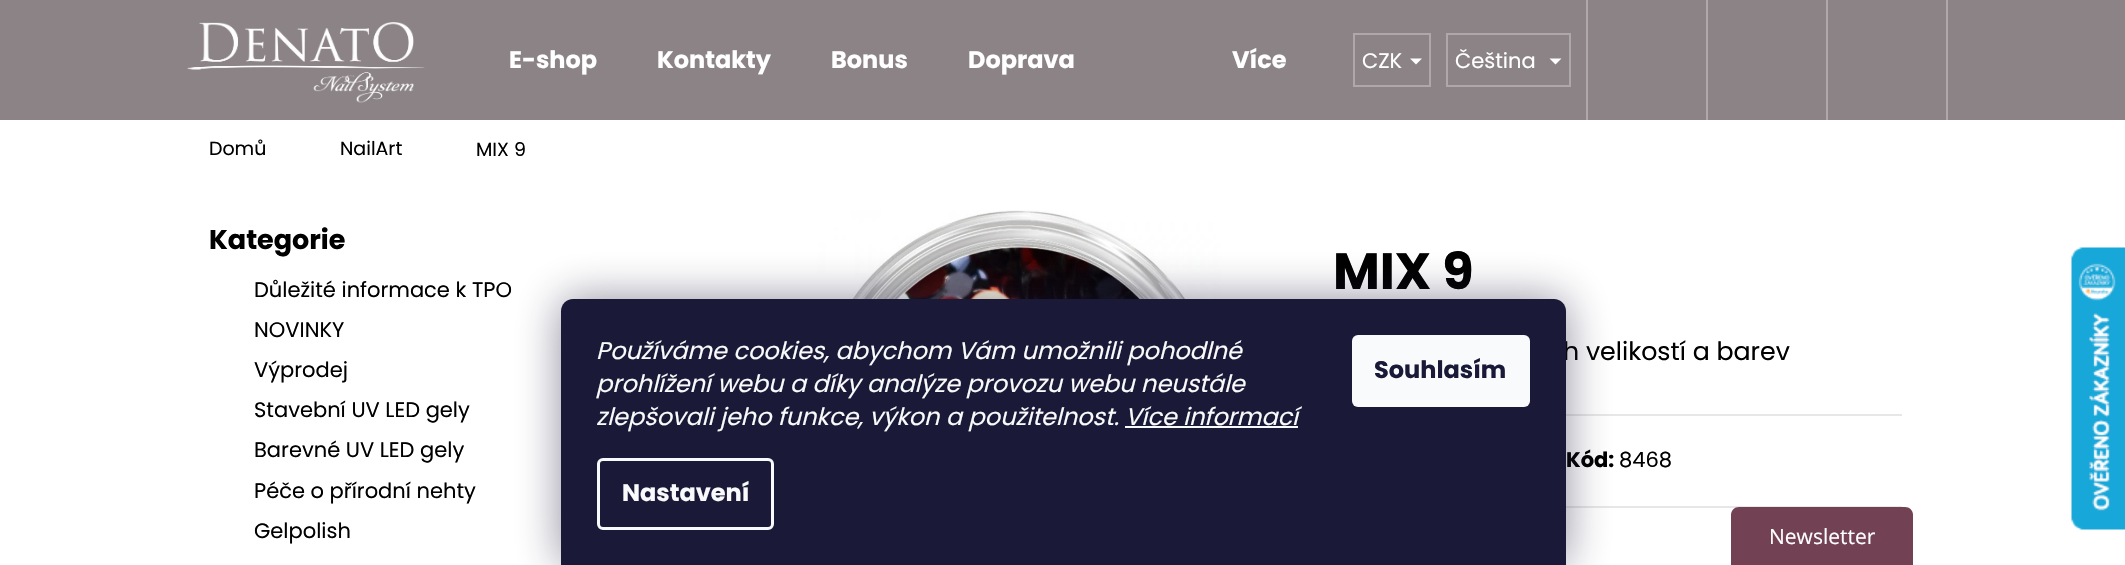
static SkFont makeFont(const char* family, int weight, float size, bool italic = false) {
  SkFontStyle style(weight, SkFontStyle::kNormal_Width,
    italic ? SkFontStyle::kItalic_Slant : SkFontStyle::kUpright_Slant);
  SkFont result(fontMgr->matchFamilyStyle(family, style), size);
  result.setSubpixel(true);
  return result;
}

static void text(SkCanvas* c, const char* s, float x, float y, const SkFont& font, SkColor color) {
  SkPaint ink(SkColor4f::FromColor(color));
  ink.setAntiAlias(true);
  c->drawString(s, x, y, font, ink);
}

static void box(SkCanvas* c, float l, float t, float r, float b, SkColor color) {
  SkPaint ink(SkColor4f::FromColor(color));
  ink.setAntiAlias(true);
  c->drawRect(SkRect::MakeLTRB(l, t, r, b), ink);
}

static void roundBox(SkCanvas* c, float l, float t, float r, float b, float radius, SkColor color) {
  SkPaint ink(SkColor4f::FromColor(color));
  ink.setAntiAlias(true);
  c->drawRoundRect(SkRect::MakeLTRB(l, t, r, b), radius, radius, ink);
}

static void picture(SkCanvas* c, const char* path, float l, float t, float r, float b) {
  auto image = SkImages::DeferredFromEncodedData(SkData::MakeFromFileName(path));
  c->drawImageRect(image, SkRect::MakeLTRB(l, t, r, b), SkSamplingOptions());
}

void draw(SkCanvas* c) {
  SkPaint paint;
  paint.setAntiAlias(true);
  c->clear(0xffffffff);
  box(c, 0, 0, 2125, 120, 0xff8b8386);
  picture(c, "img_01.png", 187, 22, 425, 103);
  SkFont face1 = makeFont("Poppins", 700, 24);
  text(c, "E-shop", 509, 68, face1, 0xffffffff);
  text(c, "Kontakty", 657, 68, face1, 0xffffffff);
  text(c, "Bonus", 831, 68, face1, 0xffffffff);
  text(c, "Doprava", 968, 68, face1, 0xffffffff);
  text(c, "Více", 1232, 68, face1, 0xffffffff);
  box(c, 1946, 0, 1948, 120, 0xffaea8aa);
  paint.setStyle(SkPaint::kStroke_Style);
  paint.setStrokeWidth(2);
  paint.setColor(0xffaea8aa);
  c->drawRect(SkRect::MakeLTRB(1354, 34, 1430, 86), paint);
  SkFont face2 = makeFont("Poppins", 400, 21);
  text(c, "CZK", 1362, 68, face2, 0xffffffff);
  paint.setStyle(SkPaint::kFill_Style);
  paint.setColor(0xffffffff);
  c->drawPath(SkPathBuilder().moveTo(1410, 58.5f).lineTo(1422, 58.5f).lineTo(1416, 64.5f).close().detach(), paint);
  paint.setStyle(SkPaint::kStroke_Style);
  paint.setColor(0xffaea8aa);
  c->drawRect(SkRect::MakeLTRB(1447, 34, 1570, 86), paint);
  text(c, "Čeština", 1455, 68, face2, 0xffffffff);
  paint.setStyle(SkPaint::kFill_Style);
  paint.setColor(0xffffffff);
  c->drawPath(SkPathBuilder().moveTo(1549.5f, 58.5f).lineTo(1561.5f, 58.5f).lineTo(1555.5f, 64.5f).close().detach(), paint);
  box(c, 1586, 0, 1588, 120, 0xffaea8aa);
  box(c, 1706, 0, 1708, 120, 0xffaea8aa);
  box(c, 1826, 0, 1828, 120, 0xffaea8aa);
  SkFont face3 = makeFont("Poppins", 400, 19);
  text(c, "Domů", 209, 155, face3, 0xff000000);
  text(c, "NailArt", 340, 155, face3, 0xff000000);
  text(c, "MIX 9", 476, 156, face3, 0xff000000);
  SkFont face4 = makeFont("Poppins", 700, 27);
  text(c, "Kategorie", 209, 249, face4, 0xff000000);
  text(c, "Důležité informace k TPO", 254, 297, face2, 0xff000000);
  text(c, "NOVINKY", 254, 337, face2, 0xff000000);
  text(c, "Výprodej", 254, 377, face2, 0xff000000);
  text(c, "Stavební UV LED gely", 254, 417, face2, 0xff000000);
  text(c, "Barevné UV LED gely", 254, 457, face2, 0xff000000);
  text(c, "Péče o přírodní nehty", 254, 498, face2, 0xff000000);
  text(c, "Gelpolish", 254, 538, face2, 0xff000000);
  picture(c, "img_02.png", 817, 210, 1221, 299);
  SkFont face5 = makeFont("Poppins", 700, 51);
  text(c, "MIX 9", 1333, 289, face5, 0xff000000);
  SkFont face6 = makeFont("Poppins", 400, 25.25f);
  text(c, "h velikostí a barev", 1563, 360, face6, 0xff000000);
  box(c, 1566, 414, 1902, 416, 0xffe7e7e7);
  box(c, 1566, 506, 1902, 508, 0xffe7e7e7);
  SkFont face7 = makeFont("Poppins", 700, 21);
  text(c, "Kód:", 1566, 467, face7, 0xff000000);
  text(c, "8468", 1619, 467, face2, 0xff000000);
  picture(c, "img_03.png", 2071, 247, 2125, 530);
  paint.setColor(0x801b1939);
  paint.setMaskFilter(SkMaskFilter::MakeBlur(kNormal_SkBlurStyle, 22.5f));
  c->drawRoundRect(SkRect::MakeLTRB(561, 299, 1566, 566), 12, 12, paint);
  paint.setMaskFilter(nullptr);
  paint.setColor(0xff1a1937);
  c->drawPath(SkPathBuilder().moveTo(573, 299).lineTo(1554, 299).cubicTo(1560.5f, 299, 1566, 304.5f, 1566, 311).lineTo(1566, 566).lineTo(561, 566).lineTo(561, 311).cubicTo(561, 304.5f, 566.5f, 299, 573, 299).close().detach(), paint);
  SkFont face8 = makeFont("Poppins", 400, 24, true);
  text(c, "Používáme cookies, abychom Vám umožnili pohodlné", 596, 359, face8, 0xfff8fafb);
  text(c, "prohlížení webu a díky analýze provozu webu neustále", 596, 392, face8, 0xfff8fafb);
  text(c, "zlepšovali jeho funkce, výkon a použitelnost. Více informací", 596, 425, face8, 0xfff8fafb);
  box(c, 1125, 426, 1298, 428, 0xfff8fafb);
  paint.setStyle(SkPaint::kStroke_Style);
  paint.setStrokeWidth(3);
  paint.setColor(0xfff8fafb);
  c->drawRoundRect(SkRect::MakeLTRB(598.5f, 459.5f, 772.5f, 528.5f), 4.5f, 4.5f, paint);
  text(c, "Nastavení", 622, 501, face1, 0xfff8fafb);
  roundBox(c, 1352, 335, 1530, 407, 6, 0xfff8fafb);
  text(c, "Souhlasím", 1374, 378, face1, 0xff1a1937);
  paint.setStyle(SkPaint::kFill_Style);
  paint.setColor(0xff724153);
  c->drawPath(SkPathBuilder().moveTo(1739, 507).lineTo(1905, 507).cubicTo(1909.5f, 507, 1913, 510.5f, 1913, 515).lineTo(1913, 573).lineTo(1731, 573).lineTo(1731, 515).cubicTo(1731, 510.5f, 1734.5f, 507, 1739, 507).close().detach(), paint);
  SkFont face9 = makeFont("Open Sans", 400, 21);
  text(c, "Newsletter", 1769, 544, face9, 0xffffffff);
}
